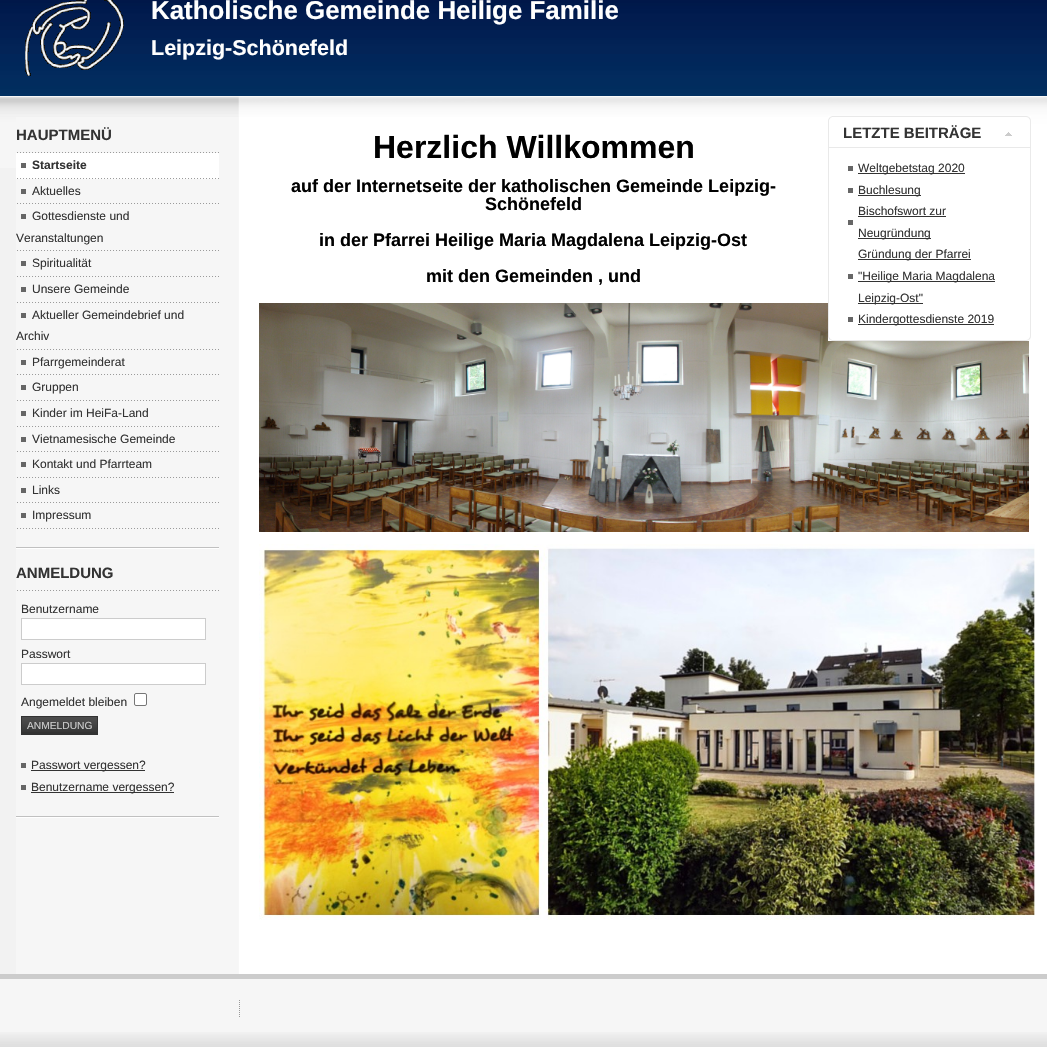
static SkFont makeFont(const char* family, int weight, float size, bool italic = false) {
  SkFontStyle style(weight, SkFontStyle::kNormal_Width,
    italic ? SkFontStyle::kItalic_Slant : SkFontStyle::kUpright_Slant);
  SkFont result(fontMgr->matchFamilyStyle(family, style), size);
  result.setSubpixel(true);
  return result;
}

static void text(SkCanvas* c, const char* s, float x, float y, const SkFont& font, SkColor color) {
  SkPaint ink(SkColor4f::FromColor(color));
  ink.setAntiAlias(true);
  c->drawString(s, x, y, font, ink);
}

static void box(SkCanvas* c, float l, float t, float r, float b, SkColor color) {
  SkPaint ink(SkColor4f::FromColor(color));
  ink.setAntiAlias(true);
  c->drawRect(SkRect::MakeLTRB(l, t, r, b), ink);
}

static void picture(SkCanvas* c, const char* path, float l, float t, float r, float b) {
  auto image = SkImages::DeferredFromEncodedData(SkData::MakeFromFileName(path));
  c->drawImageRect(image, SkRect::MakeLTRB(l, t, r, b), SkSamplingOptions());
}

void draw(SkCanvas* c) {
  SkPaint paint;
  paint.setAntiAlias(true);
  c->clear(0xfff2f2f2);
  picture(c, "img_01.png", 0, 0, 1047, 96);
  picture(c, "img_02.png", 25, 0, 124, 76);
  SkFont face1 = makeFont("Liberation Sans", 700, 25.9f);
  text(c, "Katholische Gemeinde Heilige Familie", 151, 19, face1, 0xffffffff);
  SkFont face2 = makeFont("Liberation Sans", 700, 21.5f);
  text(c, "Leipzig-Schönefeld", 151, 55, face2, 0xffffffff);
  box(c, 1031, 168, 1047, 974, 0xffffffff);
  picture(c, "img_03.png", 0, 96, 1047, 168);
  picture(c, "img_04.png", 16, 117, 1031, 974);
  picture(c, "img_05.png", 16, 96, 1031, 117);
  picture(c, "img_06.png", 16, 547, 219, 549);
  SkFont face3 = makeFont("Liberation Sans", 700, 15);
  text(c, "HAUPTMENÜ", 16, 140, face3, 0xff333333);
  picture(c, "img_07.png", 17, 152, 219, 153);
  box(c, 16, 153, 219, 179, 0xffffffff);
  picture(c, "img_08.png", 17, 178, 219, 179);
  SkFont face4 = makeFont("Liberation Sans", 700, 12);
  text(c, "Startseite", 32, 169, face4, 0xff333333);
  box(c, 21, 163, 26, 168, 0xff666666);
  picture(c, "img_07.png", 17, 203, 219, 204);
  SkFont face5 = makeFont("Liberation Sans", 400, 12);
  text(c, "Aktuelles", 32, 195, face5, 0xff333333);
  box(c, 21, 189, 26, 194, 0xff666666);
  picture(c, "img_07.png", 17, 250, 219, 251);
  text(c, "Gottesdienste und", 32, 220, face5, 0xff333333);
  box(c, 21, 214, 26, 219, 0xff666666);
  text(c, "Veranstaltungen", 16, 242, face5, 0xff333333);
  picture(c, "img_07.png", 17, 276, 219, 277);
  text(c, "Spiritualität", 32, 267, face5, 0xff333333);
  box(c, 21, 261, 26, 266, 0xff666666);
  picture(c, "img_07.png", 17, 302, 219, 303);
  text(c, "Unsere Gemeinde", 32, 293, face5, 0xff333333);
  box(c, 21, 287, 26, 292, 0xff666666);
  picture(c, "img_07.png", 17, 349, 219, 350);
  text(c, "Aktueller Gemeindebrief und", 32, 319, face5, 0xff333333);
  box(c, 21, 313, 26, 318, 0xff666666);
  text(c, "Archiv", 16, 340, face5, 0xff333333);
  picture(c, "img_07.png", 17, 374, 219, 375);
  text(c, "Pfarrgemeinderat", 32, 366, face5, 0xff333333);
  box(c, 21, 360, 26, 365, 0xff666666);
  picture(c, "img_07.png", 17, 400, 219, 401);
  text(c, "Gruppen", 32, 391, face5, 0xff333333);
  box(c, 21, 385, 26, 390, 0xff666666);
  picture(c, "img_07.png", 17, 426, 219, 427);
  text(c, "Kinder im HeiFa-Land", 32, 417, face5, 0xff333333);
  box(c, 21, 411, 26, 416, 0xff666666);
  picture(c, "img_07.png", 17, 451, 219, 452);
  text(c, "Vietnamesische Gemeinde", 32, 443, face5, 0xff333333);
  box(c, 21, 437, 26, 442, 0xff666666);
  picture(c, "img_07.png", 17, 477, 219, 478);
  text(c, "Kontakt und Pfarrteam", 32, 468, face5, 0xff333333);
  box(c, 21, 462, 26, 467, 0xff666666);
  picture(c, "img_07.png", 17, 502, 219, 503);
  text(c, "Links", 32, 494, face5, 0xff333333);
  box(c, 21, 488, 26, 493, 0xff666666);
  picture(c, "img_07.png", 17, 528, 219, 529);
  text(c, "Impressum", 32, 519, face5, 0xff333333);
  box(c, 21, 513, 26, 518, 0xff666666);
  picture(c, "img_06.png", 16, 816, 219, 818);
  text(c, "ANMELDUNG", 16, 578, face3, 0xff333333);
  picture(c, "img_07.png", 17, 590, 219, 591);
  text(c, "Benutzername", 21, 613, face5, 0xff333333);
  paint.setColor(0xffffffff);
  c->drawRect(SkRect::MakeLTRB(21.5f, 618.5f, 205.5f, 639.5f), paint);
  paint.setStyle(SkPaint::kStroke_Style);
  paint.setStrokeWidth(1);
  paint.setColor(0xffcccccc);
  c->drawRect(SkRect::MakeLTRB(21.5f, 618.5f, 205.5f, 639.5f), paint);
  text(c, "Passwort", 21, 658, face5, 0xff333333);
  paint.setStyle(SkPaint::kFill_Style);
  paint.setColor(0xffffffff);
  c->drawRect(SkRect::MakeLTRB(21.5f, 663.5f, 205.5f, 684.5f), paint);
  paint.setStyle(SkPaint::kStroke_Style);
  paint.setColor(0xffcccccc);
  c->drawRect(SkRect::MakeLTRB(21.5f, 663.5f, 205.5f, 684.5f), paint);
  text(c, "Angemeldet bleiben", 21, 706, face5, 0xff333333);
  paint.setStyle(SkPaint::kFill_Style);
  paint.setColor(0xffffffff);
  c->drawRoundRect(SkRect::MakeLTRB(134.5f, 693.5f, 146.5f, 705.5f), 1.5f, 1.5f, paint);
  paint.setStyle(SkPaint::kStroke_Style);
  paint.setColor(0xff767676);
  c->drawRoundRect(SkRect::MakeLTRB(134.5f, 693.5f, 146.5f, 705.5f), 1.5f, 1.5f, paint);
  box(c, 22, 732, 97, 734, 0xff333333);
  picture(c, "img_09.png", 22, 717, 97, 732);
  paint.setColor(0xff333333);
  c->drawRect(SkRect::MakeLTRB(21.5f, 716.5f, 97.5f, 734.5f), paint);
  SkFont face6 = makeFont("Liberation Sans", 400, 10.25f);
  text(c, "ANMELDUNG", 27, 729, face6, 0xffcccccc);
  box(c, 21, 763, 26, 768, 0xff666666);
  box(c, 31, 770, 145, 771, 0xff333333);
  text(c, "Passwort vergessen?", 31, 769, face5, 0xff333333);
  box(c, 21, 785, 26, 790, 0xff666666);
  box(c, 31, 792, 174, 793, 0xff333333);
  text(c, "Benutzername vergessen?", 31, 791, face5, 0xff333333);
  SkFont face7 = makeFont("Liberation Sans", 700, 32);
  text(c, "Herzlich Willkommen", 373, 158, face7, 0xff000000);
  SkFont face8 = makeFont("Liberation Sans", 700, 18);
  text(c, "auf der Internetseite der katholischen Gemeinde Leipzig-", 291, 192, face8, 0xff000000);
  text(c, "Schönefeld", 485, 210, face8, 0xff000000);
  text(c, "in der Pfarrei Heilige Maria Magdalena Leipzig-Ost", 319, 246, face8, 0xff000000);
  text(c, "mit den Gemeinden , und", 426, 282, face8, 0xff000000);
  picture(c, "img_10.png", 259, 303, 1029, 532);
  picture(c, "img_11.png", 259, 544, 1035, 920);
  picture(c, "img_12.png", 832, 148, 1031, 341);
  picture(c, "img_13.png", 828, 148, 832, 341);
  picture(c, "img_14.png", 832, 116, 1031, 147);
  picture(c, "img_15.png", 828, 116, 832, 147);
  picture(c, "img_16.png", 1005, 132, 1012, 136);
  box(c, 828, 147, 1031, 148, 0xffe9e9e9);
  text(c, "LETZTE BEITRÄGE", 843, 138, face3, 0xff333333);
  box(c, 848, 166, 853, 171, 0xff666666);
  box(c, 858, 173, 965, 174, 0xff333333);
  text(c, "Weltgebetstag 2020", 858, 172, face5, 0xff333333);
  box(c, 848, 188, 853, 193, 0xff666666);
  box(c, 858, 195, 921, 196, 0xff333333);
  text(c, "Buchlesung", 858, 194, face5, 0xff333333);
  box(c, 848, 220, 853, 225, 0xff666666);
  text(c, "Bischofswort zur", 858, 215, face5, 0xff333333);
  box(c, 858, 216, 946, 217, 0xff333333);
  box(c, 858, 238, 931, 239, 0xff333333);
  text(c, "Neugründung", 858, 237, face5, 0xff333333);
  box(c, 848, 274, 853, 279, 0xff666666);
  box(c, 858, 259, 971, 260, 0xff333333);
  text(c, "Gründung der Pfarrei", 858, 258, face5, 0xff333333);
  box(c, 858, 281, 995, 282, 0xff333333);
  text(c, "\"Heilige Maria Magdalena", 858, 280, face5, 0xff333333);
  box(c, 858, 303, 923, 304, 0xff333333);
  text(c, "Leipzig-Ost\"", 858, 302, face5, 0xff333333);
  box(c, 848, 317, 853, 322, 0xff666666);
  box(c, 858, 324, 994, 325, 0xff333333);
  text(c, "Kindergottesdienste 2019", 858, 323, face5, 0xff333333);
  box(c, 0, 979, 1047, 1032, 0xfff6f6f6);
  picture(c, "img_17.png", 0, 1032, 1047, 1047);
  box(c, 0, 974, 1047, 979, 0xffcccccc);
  picture(c, "img_18.png", 239, 1000, 240, 1017);
}
